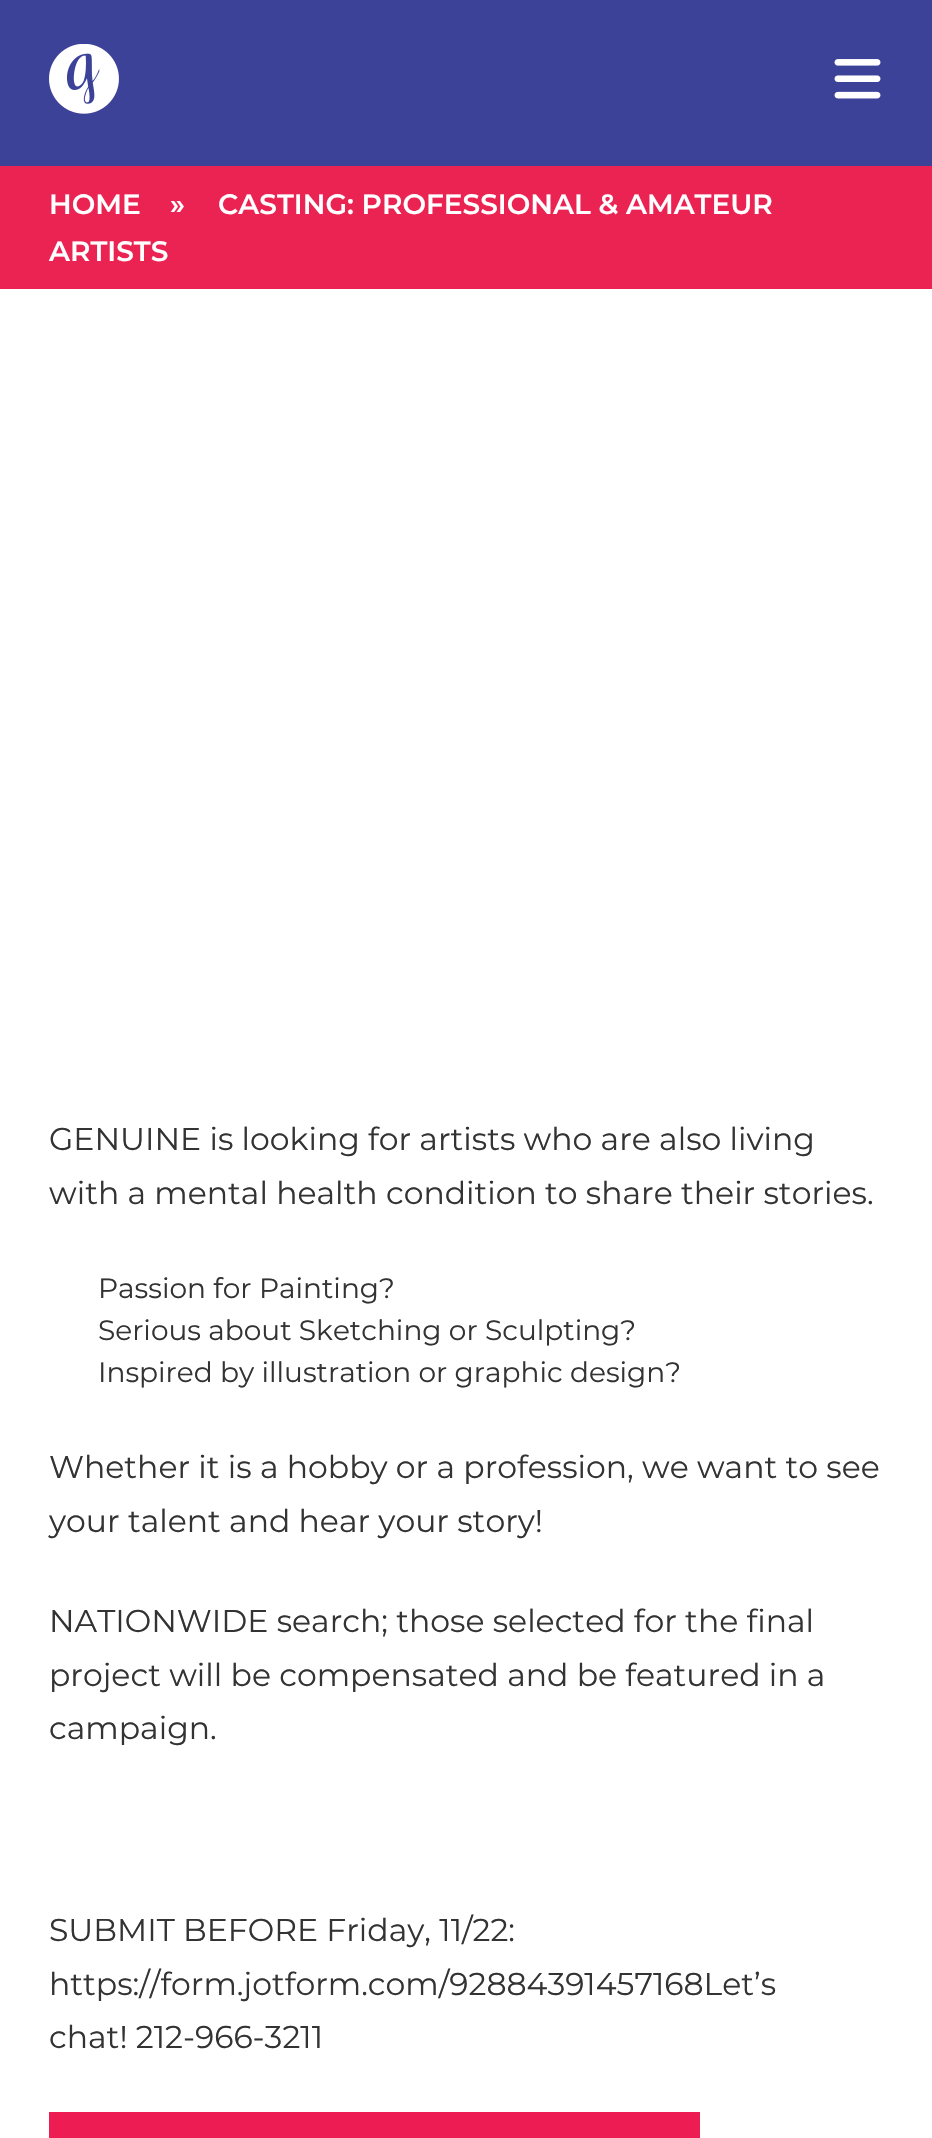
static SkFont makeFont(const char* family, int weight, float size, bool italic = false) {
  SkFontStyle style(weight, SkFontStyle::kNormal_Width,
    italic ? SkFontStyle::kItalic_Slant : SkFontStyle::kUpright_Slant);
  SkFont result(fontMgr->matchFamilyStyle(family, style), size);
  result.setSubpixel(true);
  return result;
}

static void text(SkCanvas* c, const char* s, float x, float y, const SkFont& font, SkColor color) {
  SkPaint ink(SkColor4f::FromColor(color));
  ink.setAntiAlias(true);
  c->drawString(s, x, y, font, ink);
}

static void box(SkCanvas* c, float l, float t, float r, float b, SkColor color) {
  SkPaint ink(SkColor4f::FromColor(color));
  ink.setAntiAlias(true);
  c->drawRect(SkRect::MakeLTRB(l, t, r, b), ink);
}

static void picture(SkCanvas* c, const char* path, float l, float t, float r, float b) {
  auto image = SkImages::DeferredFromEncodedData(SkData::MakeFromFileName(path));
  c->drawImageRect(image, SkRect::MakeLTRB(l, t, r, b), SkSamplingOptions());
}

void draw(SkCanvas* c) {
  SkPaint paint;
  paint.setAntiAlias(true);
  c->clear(0xffffffff);
  box(c, 0, 0, 932, 166, 0xff3d4299);
  picture(c, "img_01.png", 49, 44, 119, 114);
  picture(c, "img_02.png", 834, 59, 881, 99);
  box(c, 0, 166, 932, 289, 0xffeb2352);
  SkFont face1 = makeFont("Montserrat", 600, 28);
  text(c, "HOME", 49, 214, face1, 0xffffffff);
  text(c, "»", 170, 214, face1, 0xffffffff);
  text(c, "CASTING: PROFESSIONAL & AMATEUR", 218, 214, face1, 0xffffffff);
  text(c, "ARTISTS", 49, 261, face1, 0xffffffff);
  SkFont face2 = makeFont("Montserrat", 400, 31.5f);
  text(c, "GENUINE is looking for artists who are also living", 49, 1150, face2, 0xff333333);
  text(c, "with a mental health condition to share their stories.", 49, 1204, face2, 0xff333333);
  SkFont face3 = makeFont("Montserrat", 400, 28);
  text(c, "Passion for Painting?", 98, 1298, face3, 0xff333333);
  text(c, "Serious about Sketching or Sculpting?", 98, 1340, face3, 0xff333333);
  text(c, "Inspired by illustration or graphic design?", 98, 1382, face3, 0xff333333);
  text(c, "Whether it is a hobby or a profession, we want to see", 49, 1478, face2, 0xff333333);
  text(c, "your talent and hear your story!", 49, 1532, face2, 0xff333333);
  text(c, "NATIONWIDE search; those selected for the final", 49, 1632, face2, 0xff333333);
  text(c, "project will be compensated and be featured in a", 49, 1686, face2, 0xff333333);
  text(c, "campaign.", 49, 1739, face2, 0xff333333);
  text(c, "SUBMIT BEFORE Friday, 11/22:", 49, 1941, face2, 0xff333333);
  text(c, "https://form.jotform.com/92884391457168Let’s", 49, 1995, face2, 0xff333333);
  text(c, "chat! 212-966-3211", 49, 2048, face2, 0xff333333);
  box(c, 49, 2112, 700, 2138, 0xffed1c52);
}
